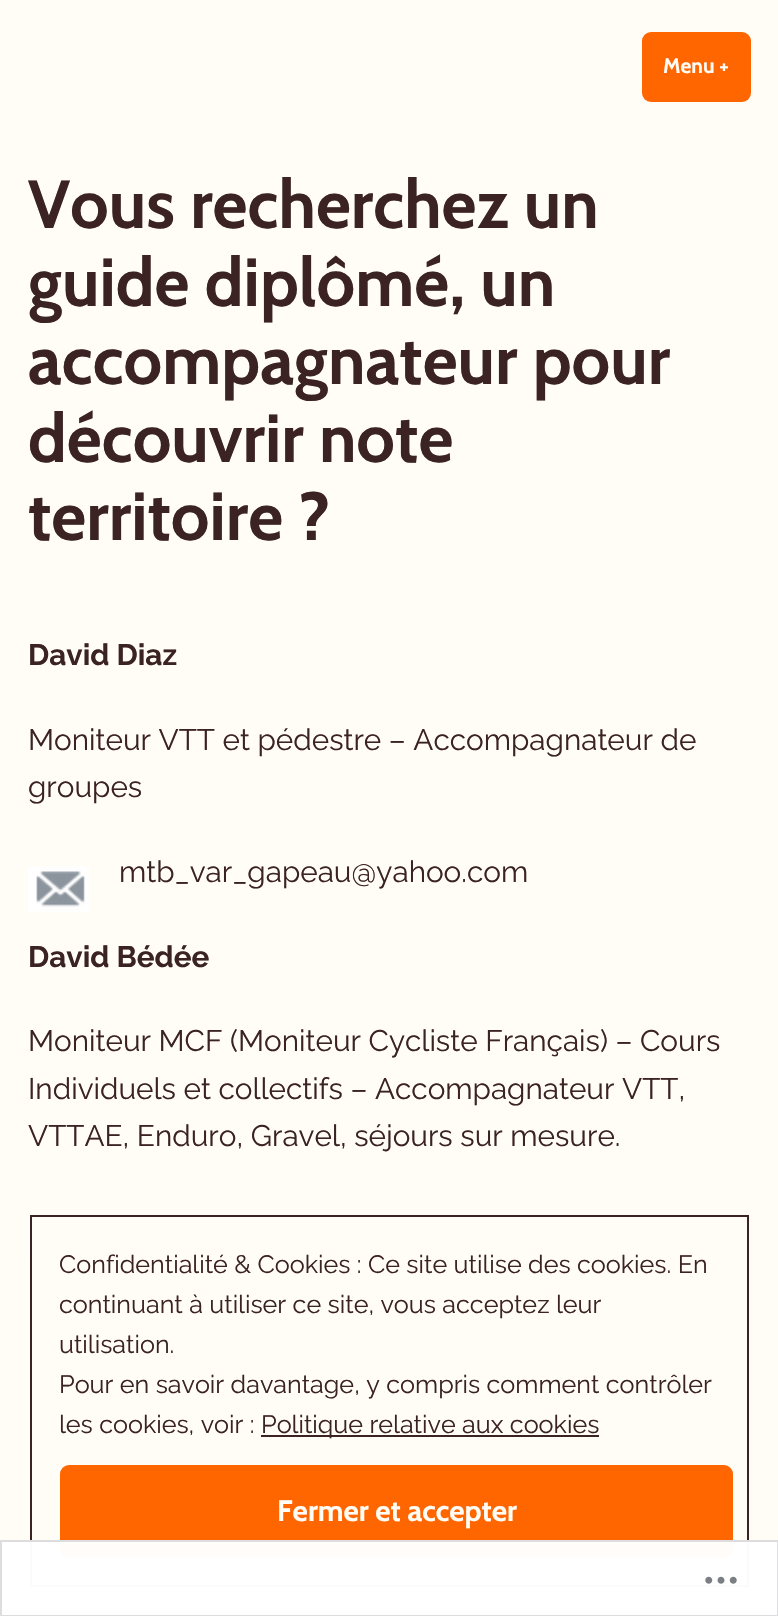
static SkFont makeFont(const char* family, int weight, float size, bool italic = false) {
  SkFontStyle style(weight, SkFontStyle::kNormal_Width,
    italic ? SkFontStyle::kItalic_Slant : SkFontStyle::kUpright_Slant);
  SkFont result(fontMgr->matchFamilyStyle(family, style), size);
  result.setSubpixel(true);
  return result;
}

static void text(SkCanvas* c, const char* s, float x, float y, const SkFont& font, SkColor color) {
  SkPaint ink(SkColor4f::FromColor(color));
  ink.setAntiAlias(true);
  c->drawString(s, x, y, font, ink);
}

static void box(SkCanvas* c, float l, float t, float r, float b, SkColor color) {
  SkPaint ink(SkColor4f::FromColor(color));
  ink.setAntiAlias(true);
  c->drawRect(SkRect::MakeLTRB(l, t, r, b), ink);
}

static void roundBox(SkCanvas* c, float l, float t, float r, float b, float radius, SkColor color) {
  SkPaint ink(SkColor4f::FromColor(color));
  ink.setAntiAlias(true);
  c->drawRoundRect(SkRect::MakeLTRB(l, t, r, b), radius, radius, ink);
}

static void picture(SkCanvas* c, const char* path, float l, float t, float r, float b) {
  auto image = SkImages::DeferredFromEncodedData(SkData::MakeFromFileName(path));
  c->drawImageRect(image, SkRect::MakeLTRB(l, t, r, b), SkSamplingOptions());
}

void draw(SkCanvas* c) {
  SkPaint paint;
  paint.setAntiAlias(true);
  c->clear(0xfffffdf6);
  roundBox(c, 642, 32, 751, 102, 9, 0xffff6600);
  SkFont face1 = makeFont("Cabin", 700, 21);
  text(c, "Menu +", 663, 73, face1, 0xfffffdf6);
  SkFont face2 = makeFont("Cabin", 700, 67.9f);
  text(c, "Vous recherchez un", 28, 228, face2, 0xff3c2323);
  text(c, "guide diplômé, un", 28, 306, face2, 0xff3c2323);
  text(c, "accompagnateur pour", 28, 384, face2, 0xff3c2323);
  text(c, "découvrir note", 28, 462, face2, 0xff3c2323);
  text(c, "territoire ?", 28, 540, face2, 0xff3c2323);
  SkFont face3 = makeFont("Raleway", 700, 29.7f);
  text(c, "David Diaz", 28, 665, face3, 0xff3c2323);
  SkFont face4 = makeFont("Raleway", 400, 29.7f);
  text(c, "Moniteur VTT et pédestre – Accompagnateur de", 28, 750, face4, 0xff3c2323);
  text(c, "groupes", 28, 797, face4, 0xff3c2323);
  picture(c, "img_01.png", 28, 866, 89, 912);
  text(c, "mtb_var_gapeau@yahoo.com", 119, 882, face4, 0xff3c2323);
  text(c, "David Bédée", 28, 967, face3, 0xff3c2323);
  text(c, "Moniteur MCF (Moniteur Cycliste Français) – Cours", 28, 1051, face4, 0xff3c2323);
  text(c, "Individuels et collectifs – Accompagnateur VTT,", 28, 1099, face4, 0xff3c2323);
  text(c, "VTTAE, Enduro, Gravel, séjours sur mesure.", 28, 1146, face4, 0xff3c2323);
  picture(c, "img_02.png", 28, 1214, 89, 1260);
  box(c, 32, 1217, 89, 1260, 0xfffffdf6);
  paint.setStyle(SkPaint::kStroke_Style);
  paint.setStrokeWidth(2);
  paint.setColor(0xff3c2323);
  c->drawRect(SkRect::MakeLTRB(31, 1216, 748, 1586), paint);
  SkFont face5 = makeFont("Raleway", 400, 25.15f);
  text(c, "Confidentialité & Cookies : Ce site utilise des cookies. En", 59, 1273, face5, 0xff3c2323);
  text(c, "continuant à utiliser ce site, vous acceptez leur", 59, 1313, face5, 0xff3c2323);
  text(c, "utilisation.", 59, 1353, face5, 0xff3c2323);
  text(c, "Pour en savoir davantage, y compris comment contrôler", 59, 1393, face5, 0xff3c2323);
  text(c, "les cookies, voir :", 59, 1433, face5, 0xff3c2323);
  box(c, 261, 1435, 599, 1437, 0xff3c2323);
  text(c, "Politique relative aux cookies", 261, 1433, face5, 0xff3c2323);
  roundBox(c, 60, 1465, 733, 1558, 9, 0xffff6600);
  SkFont face6 = makeFont("Cabin", 700, 29.7f);
  text(c, "Fermer et accepter", 277, 1521, face6, 0xfffffdf6);
  box(c, 0, 1540, 778, 1616, 0xfaffffff);
  paint.setColor(0xfadcdcde);
  c->drawRect(SkRect::MakeLTRB(1, 1541, 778, 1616), paint);
  picture(c, "img_03.png", 705, 1576, 737, 1584);
}
